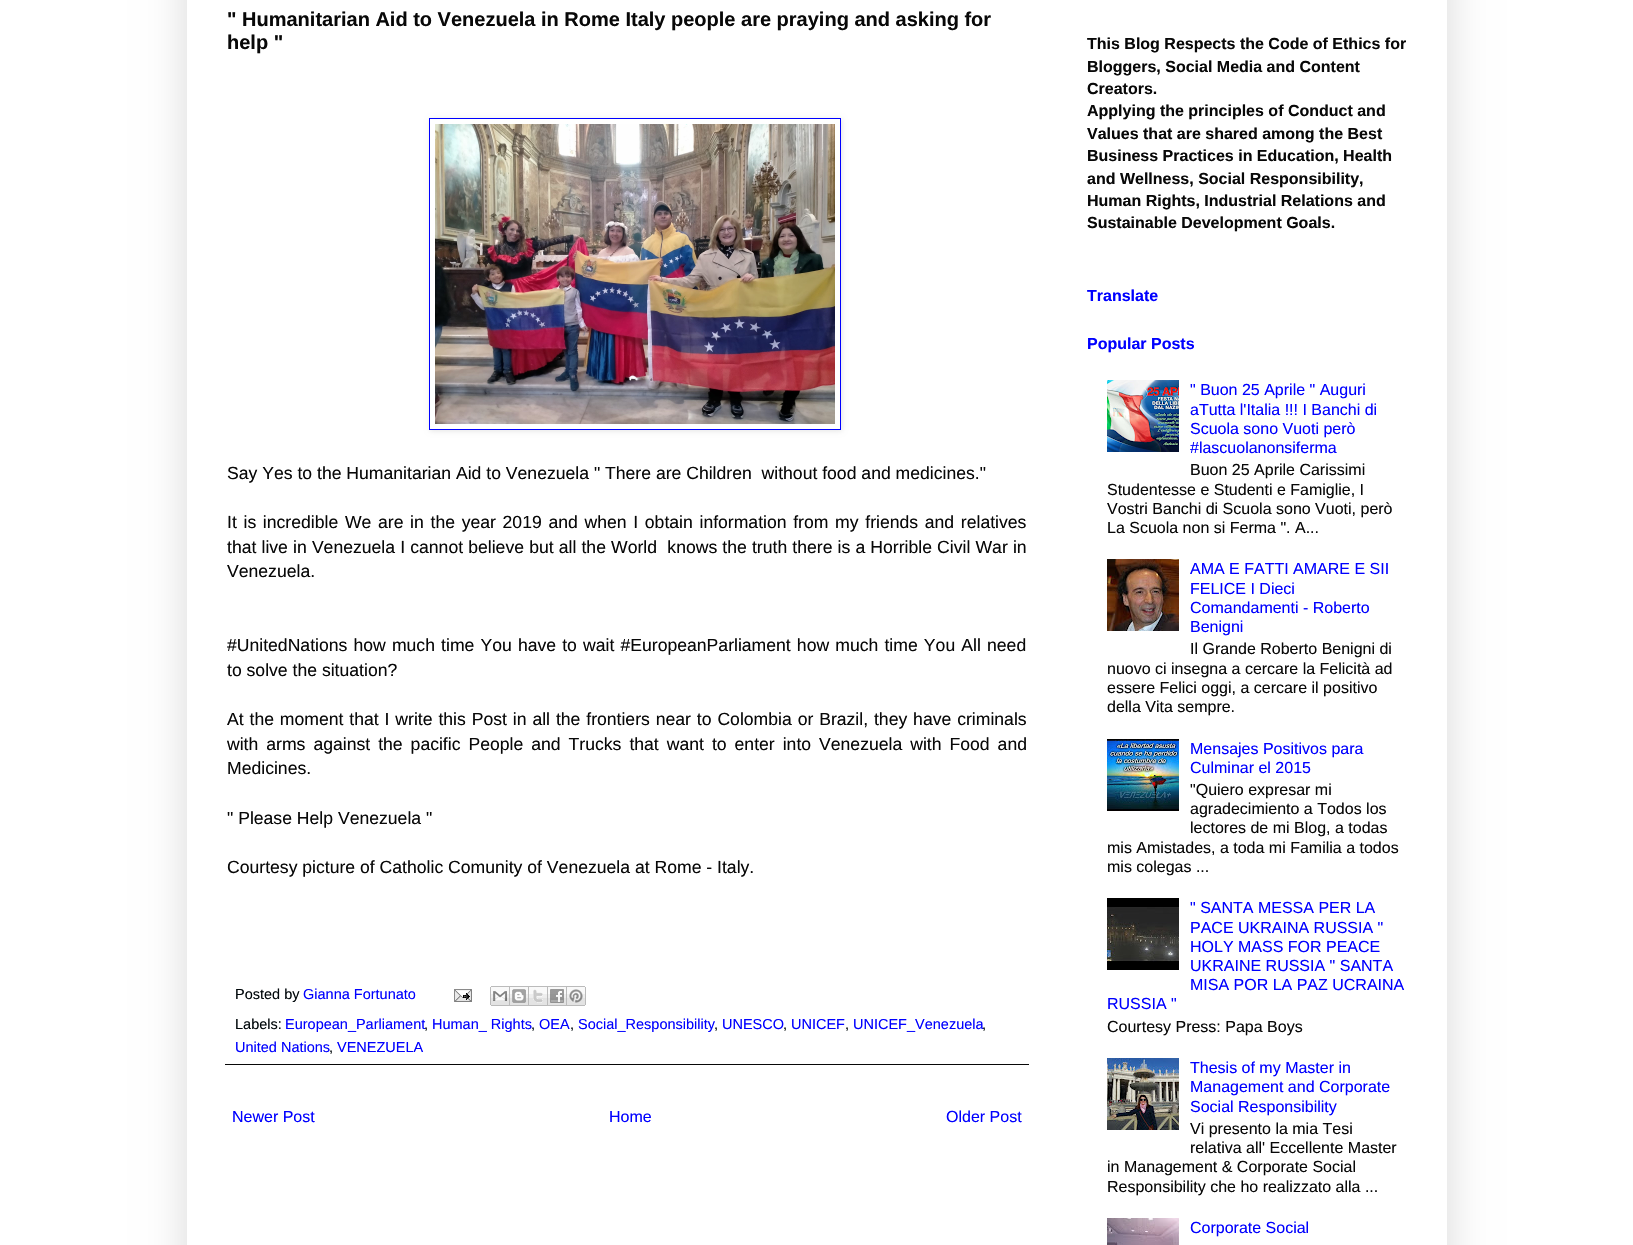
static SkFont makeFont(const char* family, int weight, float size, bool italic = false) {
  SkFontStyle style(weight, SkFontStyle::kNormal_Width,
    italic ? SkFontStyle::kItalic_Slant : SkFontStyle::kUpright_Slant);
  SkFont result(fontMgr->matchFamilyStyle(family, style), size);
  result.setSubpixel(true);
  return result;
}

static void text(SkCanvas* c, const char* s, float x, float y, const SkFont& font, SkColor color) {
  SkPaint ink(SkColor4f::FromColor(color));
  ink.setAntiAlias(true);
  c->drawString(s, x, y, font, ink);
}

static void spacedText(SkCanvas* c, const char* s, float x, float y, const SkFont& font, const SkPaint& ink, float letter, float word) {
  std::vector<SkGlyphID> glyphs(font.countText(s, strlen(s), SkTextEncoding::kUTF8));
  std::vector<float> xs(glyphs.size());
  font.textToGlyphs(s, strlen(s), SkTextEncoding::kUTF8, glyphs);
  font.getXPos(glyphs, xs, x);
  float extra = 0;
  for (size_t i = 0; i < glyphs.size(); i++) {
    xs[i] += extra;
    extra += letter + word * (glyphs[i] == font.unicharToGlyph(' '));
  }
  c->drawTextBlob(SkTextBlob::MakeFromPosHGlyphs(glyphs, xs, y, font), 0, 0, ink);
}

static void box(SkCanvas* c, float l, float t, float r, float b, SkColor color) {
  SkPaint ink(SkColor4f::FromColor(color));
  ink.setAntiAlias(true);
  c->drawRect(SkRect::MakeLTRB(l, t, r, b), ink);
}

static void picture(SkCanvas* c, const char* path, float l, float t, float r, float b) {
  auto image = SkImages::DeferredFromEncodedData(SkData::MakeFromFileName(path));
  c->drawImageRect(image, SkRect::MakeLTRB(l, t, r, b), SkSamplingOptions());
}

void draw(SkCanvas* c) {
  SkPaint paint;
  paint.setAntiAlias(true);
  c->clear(0xffffffff);
  c->save();
  c->clipPath(SkPathBuilder(SkPathFillType::kEvenOdd).moveTo(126, 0).lineTo(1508, 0).lineTo(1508, 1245).lineTo(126, 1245).close().moveTo(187, -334).lineTo(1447, -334).lineTo(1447, 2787).lineTo(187, 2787).close().detach(), true);
  paint.setColor(0x26000000);
  paint.setMaskFilter(SkMaskFilter::MakeBlur(kNormal_SkBlurStyle, 20));
  c->drawRect(SkRect::MakeLTRB(187, -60, 1447, 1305), paint);
  paint.setMaskFilter(nullptr);
  c->restore();
  SkFont face1 = makeFont("Liberation Sans", 700, 20);
  text(c, "\" Humanitarian Aid to Venezuela in Rome Italy people are praying and asking for", 227, 26, face1, 0xff080808);
  text(c, "help \"", 227, 49, face1, 0xff080808);
  c->save();
  c->clipPath(SkPathBuilder(SkPathFillType::kEvenOdd).moveTo(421, 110).lineTo(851, 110).lineTo(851, 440).lineTo(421, 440).close().moveTo(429, 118).lineTo(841, 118).lineTo(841, 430).lineTo(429, 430).close().detach(), true);
  paint.setColor(0x1a000000);
  paint.setMaskFilter(SkMaskFilter::MakeBlur(kNormal_SkBlurStyle, 2.5f));
  c->drawRect(SkRect::MakeLTRB(430, 119, 842, 431), paint);
  paint.setMaskFilter(nullptr);
  c->restore();
  paint.setStyle(SkPaint::kStroke_Style);
  paint.setStrokeWidth(1);
  paint.setColor(0xff0000ff);
  c->drawRect(SkRect::MakeLTRB(429.5f, 118.5f, 840.5f, 429.5f), paint);
  picture(c, "img_01.png", 435, 124, 835, 424);
  SkFont face2 = makeFont("Liberation Sans", 400, 17.6f);
  text(c, "Say Yes to the Humanitarian Aid to Venezuela \" There are Children  without food and medicines.\"", 227, 479, face2, 0xff080808);
  paint.setStyle(SkPaint::kFill_Style);
  paint.setColor(0xff080808);
  spacedText(c, "It is incredible We are in the year 2019 and when I obtain information from my friends and relatives", 227, 528, face2, paint, 0, 1.8f);
  spacedText(c, "that live in Venezuela I cannot believe but all the World  knows the truth there is a Horrible Civil War in", 227, 553, face2, paint, 0, 0.25f);
  text(c, "Venezuela.", 227, 577, face2, 0xff080808);
  spacedText(c, "#UnitedNations how much time You have to wait #EuropeanParliament how much time You All need", 227, 651, face2, paint, 0, 1.25f);
  text(c, "to solve the situation?", 227, 676, face2, 0xff080808);
  spacedText(c, "At the moment that I write this Post in all the frontiers near to Colombia or Brazil, they have criminals", 227, 725, face2, paint, 0, 1);
  spacedText(c, "with arms against the pacific People and Trucks that want to enter into Venezuela with Food and", 227, 750, face2, paint, 0, 3.1f);
  text(c, "Medicines.", 227, 774, face2, 0xff080808);
  text(c, "\" Please Help Venezuela \"", 227, 824, face2, 0xff080808);
  text(c, "Courtesy picture of Catholic Comunity of Venezuela at Rome - Italy.", 227, 873, face2, 0xff080808);
  box(c, 225, 1064, 1029, 1065, 0xff080808);
  SkFont face3 = makeFont("Liberation Sans", 400, 14.5f);
  text(c, "Posted by", 235, 999, face3, 0xff00070a);
  text(c, "Gianna Fortunato", 303, 999, face3, 0xff0000ff);
  picture(c, "img_02.png", 454, 989, 472, 1002);
  picture(c, "img_03.png", 490, 986, 510, 1006);
  picture(c, "img_04.png", 510, 986, 529, 1006);
  picture(c, "img_05.png", 529, 986, 548, 1006);
  picture(c, "img_06.png", 548, 986, 567, 1006);
  picture(c, "img_07.png", 567, 986, 586, 1006);
  text(c, "Labels:", 235, 1029, face3, 0xff00070a);
  text(c, "European_Parliament", 285, 1029, face3, 0xff0000ff);
  text(c, ",", 424, 1029, face3, 0xff00070a);
  text(c, "Human_ Rights", 432, 1029, face3, 0xff0000ff);
  text(c, ",", 531, 1029, face3, 0xff00070a);
  text(c, "OEA", 539, 1029, face3, 0xff0000ff);
  text(c, ",", 570, 1029, face3, 0xff00070a);
  text(c, "Social_Responsibility", 578, 1029, face3, 0xff0000ff);
  text(c, ",", 714, 1029, face3, 0xff00070a);
  text(c, "UNESCO", 722, 1029, face3, 0xff0000ff);
  text(c, ",", 783, 1029, face3, 0xff00070a);
  text(c, "UNICEF", 791, 1029, face3, 0xff0000ff);
  text(c, ",", 845, 1029, face3, 0xff00070a);
  text(c, "UNICEF_Venezuela", 853, 1029, face3, 0xff0000ff);
  text(c, ",", 982, 1029, face3, 0xff00070a);
  text(c, "United Nations", 235, 1052, face3, 0xff0000ff);
  text(c, ",", 329, 1052, face3, 0xff00070a);
  text(c, "VENEZUELA", 337, 1052, face3, 0xff0000ff);
  SkFont face4 = makeFont("Liberation Sans", 400, 16);
  text(c, "Newer Post", 232, 1122, face4, 0xff0000ff);
  text(c, "Home", 609, 1122, face4, 0xff0000ff);
  text(c, "Older Post", 946, 1122, face4, 0xff0000ff);
  SkFont face5 = makeFont("Liberation Sans", 700, 16);
  text(c, "This Blog Respects the Code of Ethics for", 1087, 49, face5, 0xff080808);
  text(c, "Bloggers, Social Media and Content", 1087, 72, face5, 0xff080808);
  text(c, "Creators.", 1087, 94, face5, 0xff080808);
  text(c, "Applying the principles of Conduct and", 1087, 116, face5, 0xff080808);
  text(c, "Values that are shared among the Best", 1087, 139, face5, 0xff080808);
  text(c, "Business Practices in Education, Health", 1087, 161, face5, 0xff080808);
  text(c, "and Wellness, Social Responsibility,", 1087, 184, face5, 0xff080808);
  text(c, "Human Rights, Industrial Relations and", 1087, 206, face5, 0xff080808);
  text(c, "Sustainable Development Goals.", 1087, 228, face5, 0xff080808);
  text(c, "Translate", 1087, 301, face5, 0xff0000ff);
  text(c, "Popular Posts", 1087, 349, face5, 0xff0000ff);
  picture(c, "img_08.png", 1107, 380, 1179, 452);
  text(c, "\" Buon 25 Aprile \" Auguri", 1190, 395, face4, 0xff0000ff);
  text(c, "aTutta l'Italia !!! I Banchi di", 1190, 415, face4, 0xff0000ff);
  text(c, "Scuola sono Vuoti però", 1190, 434, face4, 0xff0000ff);
  text(c, "#lascuolanonsiferma", 1190, 453, face4, 0xff0000ff);
  text(c, "Buon 25 Aprile Carissimi", 1190, 475, face4, 0xff080808);
  text(c, "Studentesse e Studenti e Famiglie, I", 1107, 495, face4, 0xff080808);
  text(c, "Vostri Banchi di Scuola sono Vuoti, però", 1107, 514, face4, 0xff080808);
  text(c, "La Scuola non si Ferma \". A...", 1107, 533, face4, 0xff080808);
  picture(c, "img_09.png", 1107, 559, 1179, 631);
  text(c, "AMA E FATTI AMARE E SII", 1190, 574, face4, 0xff0000ff);
  text(c, "FELICE I Dieci", 1190, 594, face4, 0xff0000ff);
  text(c, "Comandamenti - Roberto", 1190, 613, face4, 0xff0000ff);
  text(c, "Benigni", 1190, 632, face4, 0xff0000ff);
  text(c, "Il Grande Roberto Benigni di", 1190, 654, face4, 0xff080808);
  text(c, "nuovo ci insegna a cercare la Felicità ad", 1107, 674, face4, 0xff080808);
  text(c, "essere Felici oggi, a cercare il positivo", 1107, 693, face4, 0xff080808);
  text(c, "della Vita sempre.", 1107, 712, face4, 0xff080808);
  picture(c, "img_10.png", 1107, 739, 1179, 811);
  text(c, "Mensajes Positivos para", 1190, 754, face4, 0xff0000ff);
  text(c, "Culminar el 2015", 1190, 773, face4, 0xff0000ff);
  text(c, "\"Quiero expresar mi", 1190, 795, face4, 0xff080808);
  text(c, "agradecimiento a Todos los", 1190, 814, face4, 0xff080808);
  text(c, "lectores de mi Blog, a todas", 1190, 833, face4, 0xff080808);
  text(c, "mis Amistades, a toda mi Familia a todos", 1107, 853, face4, 0xff080808);
  text(c, "mis colegas ...", 1107, 872, face4, 0xff080808);
  picture(c, "img_11.png", 1107, 898, 1179, 970);
  text(c, "\" SANTA MESSA PER LA", 1190, 913, face4, 0xff0000ff);
  text(c, "PACE UKRAINA RUSSIA \"", 1190, 933, face4, 0xff0000ff);
  text(c, "HOLY MASS FOR PEACE", 1190, 952, face4, 0xff0000ff);
  text(c, "UKRAINE RUSSIA \" SANTA", 1190, 971, face4, 0xff0000ff);
  text(c, "MISA POR LA PAZ UCRAINA", 1190, 990, face4, 0xff0000ff);
  text(c, "RUSSIA \"", 1107, 1009, face4, 0xff0000ff);
  text(c, "Courtesy Press: Papa Boys", 1107, 1032, face4, 0xff080808);
  picture(c, "img_12.png", 1107, 1058, 1179, 1130);
  text(c, "Thesis of my Master in", 1190, 1073, face4, 0xff0000ff);
  text(c, "Management and Corporate", 1190, 1092, face4, 0xff0000ff);
  text(c, "Social Responsibility", 1190, 1112, face4, 0xff0000ff);
  text(c, "Vi presento la mia Tesi", 1190, 1134, face4, 0xff080808);
  text(c, "relativa all' Eccellente Master", 1190, 1153, face4, 0xff080808);
  text(c, "in Management & Corporate Social", 1107, 1172, face4, 0xff080808);
  text(c, "Responsibility che ho realizzato alla ...", 1107, 1192, face4, 0xff080808);
  picture(c, "img_13.png", 1107, 1218, 1179, 1245);
  text(c, "Corporate Social", 1190, 1233, face4, 0xff0000ff);
}
